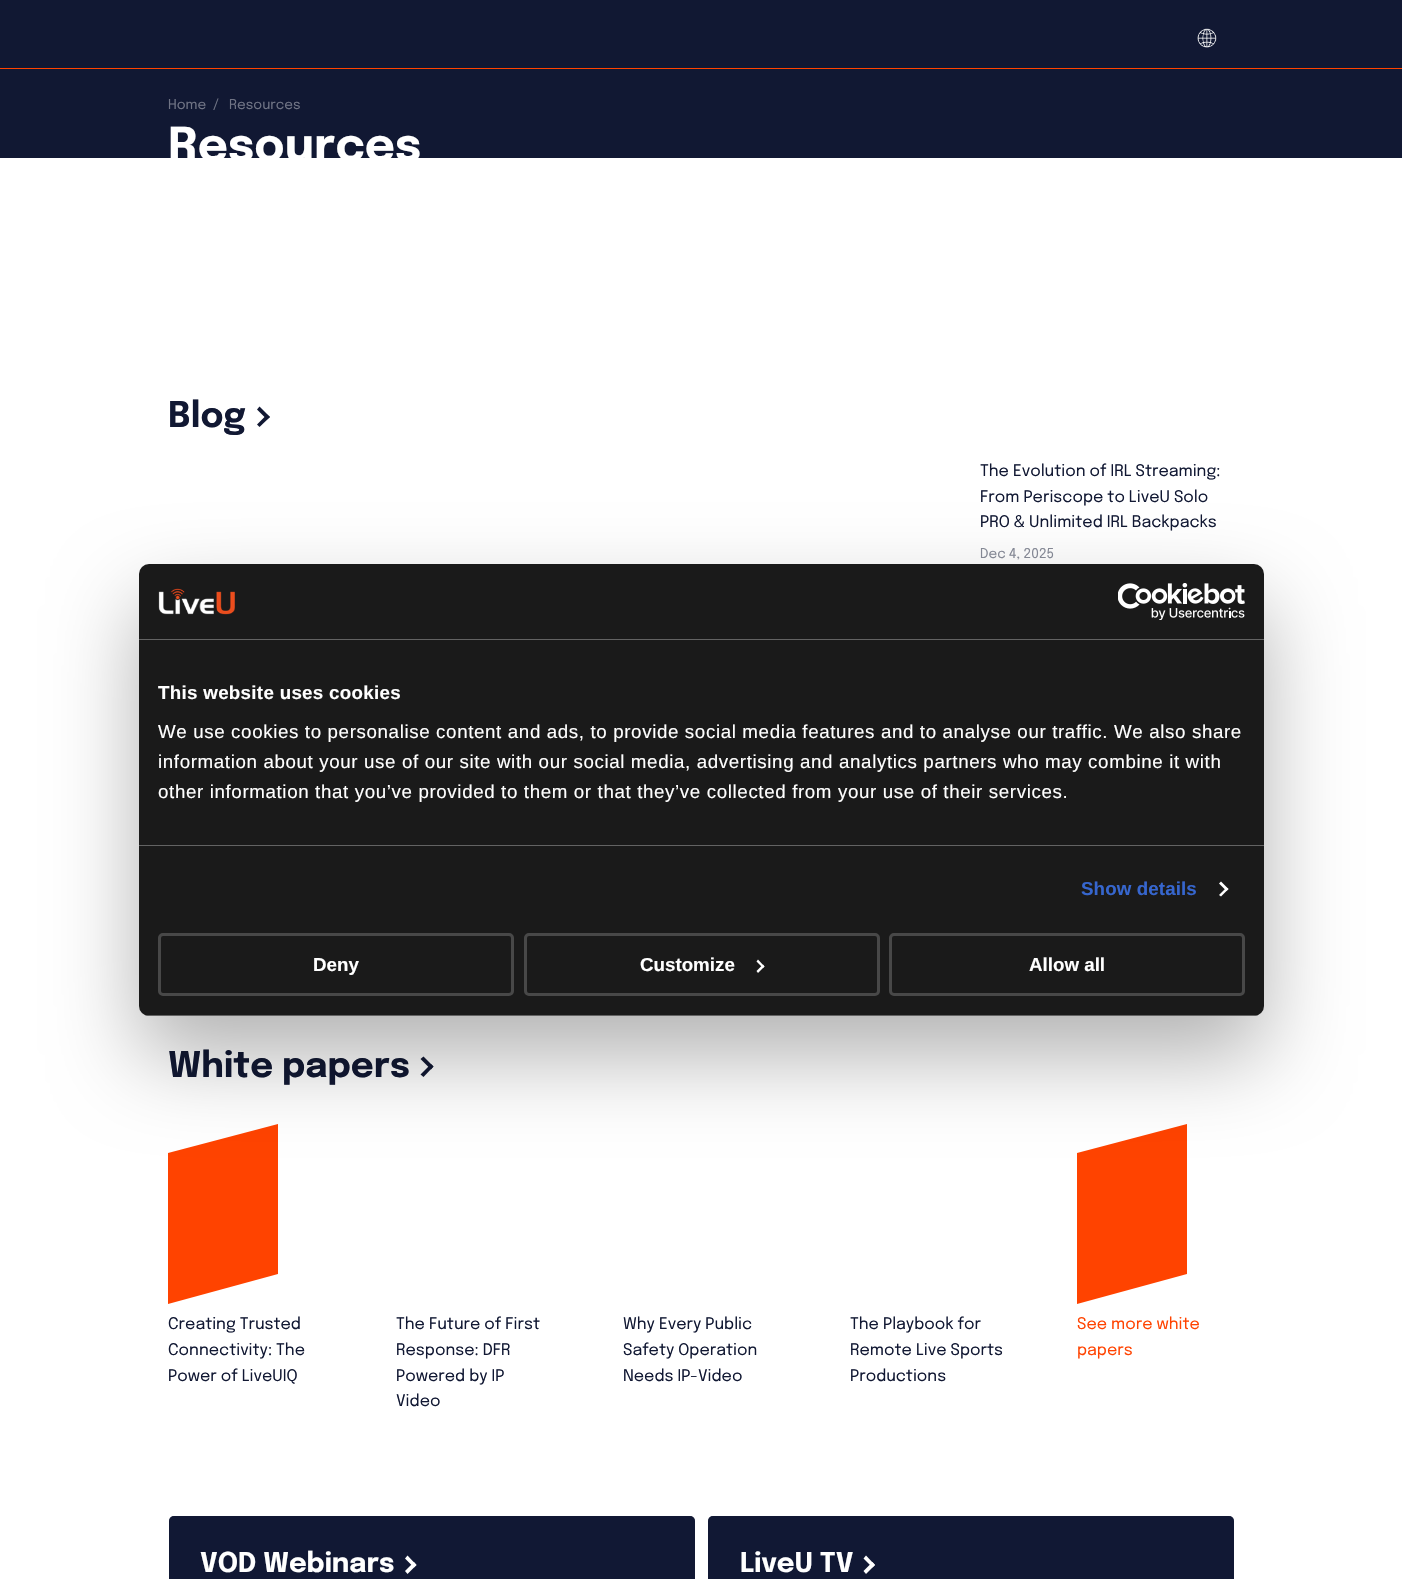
static SkFont makeFont(const char* family, int weight, float size, bool italic = false) {
  SkFontStyle style(weight, SkFontStyle::kNormal_Width,
    italic ? SkFontStyle::kItalic_Slant : SkFontStyle::kUpright_Slant);
  SkFont result(fontMgr->matchFamilyStyle(family, style), size);
  result.setSubpixel(true);
  return result;
}

static void text(SkCanvas* c, const char* s, float x, float y, const SkFont& font, SkColor color) {
  SkPaint ink(SkColor4f::FromColor(color));
  ink.setAntiAlias(true);
  c->drawString(s, x, y, font, ink);
}

static void spacedText(SkCanvas* c, const char* s, float x, float y, const SkFont& font, const SkPaint& ink, float letter, float word) {
  std::vector<SkGlyphID> glyphs(font.countText(s, strlen(s), SkTextEncoding::kUTF8));
  std::vector<float> xs(glyphs.size());
  font.textToGlyphs(s, strlen(s), SkTextEncoding::kUTF8, glyphs);
  font.getXPos(glyphs, xs, x);
  float extra = 0;
  for (size_t i = 0; i < glyphs.size(); i++) {
    xs[i] += extra;
    extra += letter + word * (glyphs[i] == font.unicharToGlyph(' '));
  }
  c->drawTextBlob(SkTextBlob::MakeFromPosHGlyphs(glyphs, xs, y, font), 0, 0, ink);
}

static void box(SkCanvas* c, float l, float t, float r, float b, SkColor color) {
  SkPaint ink(SkColor4f::FromColor(color));
  ink.setAntiAlias(true);
  c->drawRect(SkRect::MakeLTRB(l, t, r, b), ink);
}

static void roundBox(SkCanvas* c, float l, float t, float r, float b, float radius, SkColor color) {
  SkPaint ink(SkColor4f::FromColor(color));
  ink.setAntiAlias(true);
  c->drawRoundRect(SkRect::MakeLTRB(l, t, r, b), radius, radius, ink);
}

static void picture(SkCanvas* c, const char* path, float l, float t, float r, float b) {
  auto image = SkImages::DeferredFromEncodedData(SkData::MakeFromFileName(path));
  c->drawImageRect(image, SkRect::MakeLTRB(l, t, r, b), SkSamplingOptions());
}

void draw(SkCanvas* c) {
  SkPaint paint;
  paint.setAntiAlias(true);
  c->clear(0xffffffff);
  box(c, 0, 0, 1402, 68, 0xff111833);
  box(c, 0, 68, 1402, 69, 0xffff4300);
  picture(c, "img_01.png", 1197, 28, 1217, 48);
  box(c, 0, 69, 1402, 158, 0xff111833);
  SkFont face1 = makeFont("Epilogue", 400, 13.5f);
  text(c, "Home", 168, 109, face1, 0xff707485);
  text(c, "/", 213, 109, face1, 0xff707485);
  text(c, "Resources", 229, 109, face1, 0xff707485);
  SkFont face2 = makeFont("Epilogue", 700, 46.5f);
  text(c, "Resources", 168, 161, face2, 0xffffffff);
  SkFont face3 = makeFont("Epilogue", 700, 35.25f);
  text(c, "Blog", 168, 427, face3, 0xff111833);
  paint.setColor(0xff111833);
  c->drawPath(SkPathBuilder().moveTo(259.5f, 406.5f).lineTo(270, 417).lineTo(267, 419.5f).lineTo(257, 409.5f).close().detach(), paint);
  c->drawPath(SkPathBuilder().moveTo(267, 414.5f).lineTo(270, 417).lineTo(259.5f, 427).lineTo(257, 424.5f).close().detach(), paint);
  SkFont face4 = makeFont("Epilogue", 400, 16);
  text(c, "The Evolution of IRL Streaming:", 980, 476, face4, 0xff111833);
  text(c, "From Periscope to LiveU Solo", 980, 502, face4, 0xff111833);
  text(c, "PRO & Unlimited IRL Backpacks", 980, 527, face4, 0xff111833);
  text(c, "Dec 4, 2025", 980, 558, face1, 0xff888c99);
  text(c, "White papers", 168, 1077, face3, 0xff111833);
  c->drawPath(SkPathBuilder().moveTo(423.5f, 1056.5f).lineTo(433.5f, 1066.5f).lineTo(431, 1069.5f).lineTo(420.5f, 1059).close().detach(), paint);
  c->drawPath(SkPathBuilder().moveTo(431, 1064).lineTo(433.5f, 1066.5f).lineTo(423.5f, 1077).lineTo(420.5f, 1074.5f).close().detach(), paint);
  paint.setColor(0xffff4300);
  c->drawPath(SkPathBuilder().moveTo(168, 1153).lineTo(278, 1124).lineTo(278, 1274).lineTo(168, 1304).close().detach(), paint);
  text(c, "Creating Trusted", 168, 1329, face4, 0xff111833);
  text(c, "Connectivity: The", 168, 1355, face4, 0xff111833);
  text(c, "Power of LiveUIQ", 168, 1381, face4, 0xff111833);
  text(c, "The Future of First", 396, 1329, face4, 0xff111833);
  text(c, "Response: DFR", 396, 1355, face4, 0xff111833);
  text(c, "Powered by IP", 396, 1381, face4, 0xff111833);
  text(c, "Video", 396, 1406, face4, 0xff111833);
  text(c, "Why Every Public", 623, 1329, face4, 0xff111833);
  text(c, "Safety Operation", 623, 1355, face4, 0xff111833);
  text(c, "Needs IP-Video", 623, 1381, face4, 0xff111833);
  text(c, "The Playbook for", 850, 1329, face4, 0xff111833);
  text(c, "Remote Live Sports", 850, 1355, face4, 0xff111833);
  text(c, "Productions", 850, 1381, face4, 0xff111833);
  c->drawPath(SkPathBuilder().moveTo(1077, 1153).lineTo(1187, 1124).lineTo(1187, 1274).lineTo(1077, 1304).close().detach(), paint);
  text(c, "See more white", 1077, 1329, face4, 0xffff4300);
  text(c, "papers", 1077, 1355, face4, 0xffff4300);
  roundBox(c, 169, 1516, 695, 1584, 5, 0xff111833);
  {
    const SkColor colors[] = {0x99111833, 0x99111833, 0x00111833};
    const float stops[] = {0, 0.7f, 1};
    const SkPoint ends[] = {{432, 1516}, {432, 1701}};
    paint.setShader(SkGradientShader::MakeLinear(ends, colors, stops, 3, SkTileMode::kClamp));
    paint.setAlpha(255);
  }
  c->drawRoundRect(SkRect::MakeLTRB(169, 1516, 695, 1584), 5, 5, paint);
  SkFont face5 = makeFont("Epilogue", 700, 27.25f);
  text(c, "VOD Webinars", 200, 1572, face5, 0xffffffff);
  paint.setShader(nullptr);
  paint.setColor(0xffffffff);
  c->drawPath(SkPathBuilder().moveTo(407.5f, 1555.5f).lineTo(416.5f, 1565).lineTo(414, 1567.5f).lineTo(405, 1558.5f).close().detach(), paint);
  c->drawPath(SkPathBuilder().moveTo(414, 1562).lineTo(416.5f, 1565).lineTo(407.5f, 1574).lineTo(405, 1571).close().detach(), paint);
  roundBox(c, 708, 1516, 1234, 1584, 5, 0xff111833);
  {
    const SkColor colors[] = {0x99111833, 0x99111833, 0x00111833};
    const float stops[] = {0, 0.7f, 1};
    const SkPoint ends[] = {{971, 1516}, {971, 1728}};
    paint.setShader(SkGradientShader::MakeLinear(ends, colors, stops, 3, SkTileMode::kClamp));
    paint.setAlpha(255);
  }
  c->drawRoundRect(SkRect::MakeLTRB(708, 1516, 1234, 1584), 5, 5, paint);
  text(c, "LiveU TV", 740, 1572, face5, 0xffffffff);
  paint.setShader(nullptr);
  paint.setColor(0xffffffff);
  c->drawPath(SkPathBuilder().moveTo(866, 1555.5f).lineTo(875, 1565).lineTo(872.5f, 1567.5f).lineTo(863.5f, 1558.5f).close().detach(), paint);
  c->drawPath(SkPathBuilder().moveTo(872.5f, 1562).lineTo(875, 1565).lineTo(866, 1574).lineTo(863.5f, 1571).close().detach(), paint);
  paint.setColor(0x4d000000);
  paint.setMaskFilter(SkMaskFilter::MakeBlur(kNormal_SkBlurStyle, 42.5f));
  c->drawRoundRect(SkRect::MakeLTRB(139, 604, 1264, 1056), 10, 10, paint);
  paint.setMaskFilter(nullptr);
  roundBox(c, 139, 564, 1264, 1016, 10, 0xff1a1a1a);
  box(c, 139, 639, 1264, 640, 0xff636363);
  picture(c, "img_02.png", 158, 588, 235, 615);
  picture(c, "img_03.png", 1118, 583, 1245, 620);
  box(c, 139, 845, 1264, 846, 0xff636363);
  SkFont face6 = makeFont("Liberation Sans", 700, 18.75f);
  paint.setColor(0xffffffff);
  spacedText(c, "This website uses cookies", 158, 699, face6, paint, 0.3f, 0);
  SkFont face7 = makeFont("Liberation Sans", 400, 18.75f);
  spacedText(c, "We use cookies to personalise content and ads, to provide social media features and to analyse our traffic. We also share", 158, 738, face7, paint, 0.62f, 0);
  spacedText(c, "information about your use of our site with our social media, advertising and analytics partners who may combine it with", 158, 768, face7, paint, 0.62f, 0);
  spacedText(c, "other information that you’ve provided to them or that they’ve collected from your use of their services.", 158, 798, face7, paint, 0.62f, 0);
  paint.setColor(0xff3666ce);
  spacedText(c, "Show details", 1081, 895, face6, paint, 0.1f, 0);
  paint.setColor(0xffffffff);
  c->drawPath(SkPathBuilder().moveTo(1221, 881.5f).lineTo(1228.5f, 889).lineTo(1226.5f, 891).lineTo(1219, 883.5f).close().detach(), paint);
  c->drawPath(SkPathBuilder().moveTo(1226.5f, 887.5f).lineTo(1228.5f, 889).lineTo(1221, 896.5f).lineTo(1219, 895).close().detach(), paint);
  c->save();
  c->clipPath(SkPathBuilder().moveTo(149, 564).lineTo(1254, 564).cubicTo(1259.5f, 564, 1264, 568.5f, 1264, 574).lineTo(1264, 1006).cubicTo(1264, 1011.5f, 1259.5f, 1016, 1254, 1016).lineTo(149, 1016).cubicTo(143.5f, 1016, 139, 1011.5f, 139, 1006).lineTo(139, 574).cubicTo(139, 568.5f, 143.5f, 564, 149, 564).close().detach(), true);
  box(c, 139, 1015, 1264, 1016, 0xff636363);
  c->restore();
  paint.setStyle(SkPaint::kStroke_Style);
  paint.setStrokeWidth(3);
  paint.setColor(0xff484848);
  c->drawRoundRect(SkRect::MakeLTRB(159.5f, 934.5f, 512.5f, 994.5f), 3.5f, 3.5f, paint);
  text(c, "Deny", 313, 971, face6, 0xffffffff);
  c->drawRoundRect(SkRect::MakeLTRB(525.5f, 934.5f, 878.5f, 994.5f), 3.5f, 3.5f, paint);
  text(c, "Customize", 640, 971, face6, 0xffffffff);
  paint.setStyle(SkPaint::kFill_Style);
  paint.setColor(0xffffffff);
  c->drawPath(SkPathBuilder().moveTo(758, 959.5f).lineTo(764.5f, 966.5f).lineTo(763, 968).lineTo(756.5f, 961.5f).close().detach(), paint);
  c->drawPath(SkPathBuilder().moveTo(763, 964.5f).lineTo(764.5f, 966.5f).lineTo(758, 973).lineTo(756.5f, 971).close().detach(), paint);
  paint.setStyle(SkPaint::kStroke_Style);
  paint.setColor(0xff484848);
  c->drawRoundRect(SkRect::MakeLTRB(890.5f, 934.5f, 1243.5f, 994.5f), 3.5f, 3.5f, paint);
  text(c, "Allow all", 1029, 971, face6, 0xffffffff);
}
